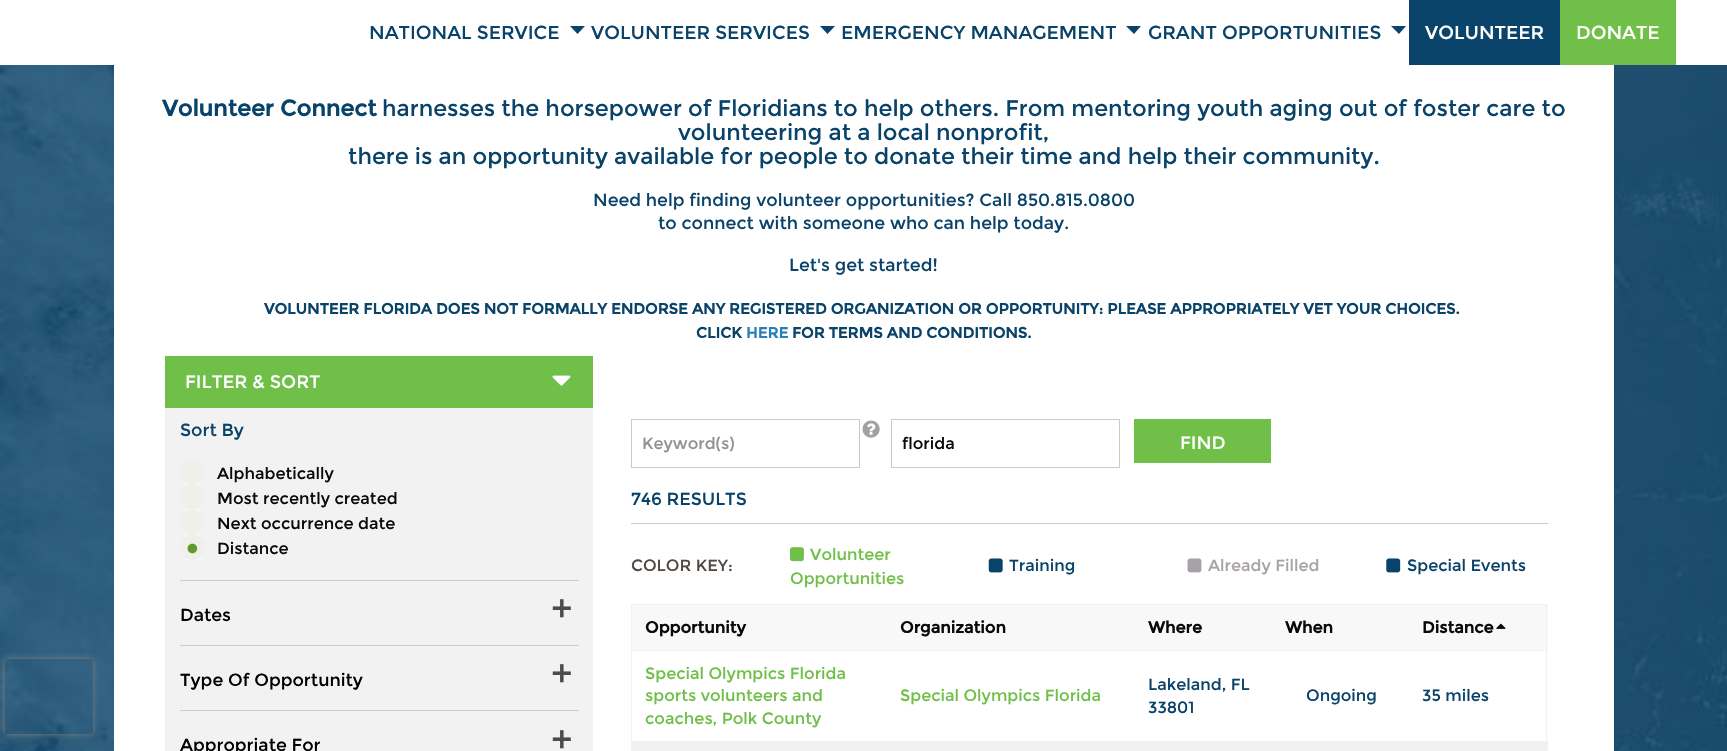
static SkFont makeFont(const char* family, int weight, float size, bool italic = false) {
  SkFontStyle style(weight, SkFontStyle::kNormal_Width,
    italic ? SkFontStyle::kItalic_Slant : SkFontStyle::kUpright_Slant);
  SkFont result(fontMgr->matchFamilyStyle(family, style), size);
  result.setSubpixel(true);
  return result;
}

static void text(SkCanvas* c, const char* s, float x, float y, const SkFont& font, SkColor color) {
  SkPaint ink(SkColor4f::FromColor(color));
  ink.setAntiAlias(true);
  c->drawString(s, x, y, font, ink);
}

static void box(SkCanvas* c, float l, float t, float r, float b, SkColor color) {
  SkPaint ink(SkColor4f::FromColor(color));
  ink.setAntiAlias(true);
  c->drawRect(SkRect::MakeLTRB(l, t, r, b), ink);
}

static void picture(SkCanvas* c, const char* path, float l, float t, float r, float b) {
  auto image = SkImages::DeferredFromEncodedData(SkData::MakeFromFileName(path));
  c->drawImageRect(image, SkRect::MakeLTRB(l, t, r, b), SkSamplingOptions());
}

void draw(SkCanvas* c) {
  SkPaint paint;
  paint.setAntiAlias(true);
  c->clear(0xffffffff);
  picture(c, "img_01.png", 0, 65, 1727, 751);
  c->save();
  c->clipPath(SkPathBuilder(SkPathFillType::kEvenOdd).moveTo(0, 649).lineTo(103, 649).lineTo(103, 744).lineTo(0, 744).close().moveTo(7.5f, 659).lineTo(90.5f, 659).cubicTo(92, 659, 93, 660, 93, 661.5f).lineTo(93, 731.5f).cubicTo(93, 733, 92, 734, 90.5f, 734).lineTo(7.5f, 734).cubicTo(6, 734, 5, 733, 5, 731.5f).lineTo(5, 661.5f).cubicTo(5, 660, 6, 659, 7.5f, 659).close().detach(), true);
  paint.setColor(0xff808080);
  paint.setMaskFilter(SkMaskFilter::MakeBlur(kNormal_SkBlurStyle, 3));
  c->drawRoundRect(SkRect::MakeLTRB(5, 659, 93, 734), 2.5f, 2.5f, paint);
  paint.setMaskFilter(nullptr);
  c->restore();
  SkFont face1 = makeFont("Montserrat", 400, 18.75f);
  text(c, "NATIONAL SERVICE", 369, 39, face1, 0xff0a436a);
  paint.setColor(0xff0a446a);
  c->drawPath(SkPathBuilder().moveTo(570, 26).lineTo(585, 26).lineTo(577.5f, 34).close().detach(), paint);
  text(c, "VOLUNTEER SERVICES", 591, 39, face1, 0xff0a436a);
  c->drawPath(SkPathBuilder().moveTo(820, 26).lineTo(835, 26).lineTo(827.5f, 34).close().detach(), paint);
  text(c, "EMERGENCY MANAGEMENT", 841, 39, face1, 0xff0a436a);
  c->drawPath(SkPathBuilder().moveTo(1126, 26).lineTo(1141, 26).lineTo(1134, 34).close().detach(), paint);
  text(c, "GRANT OPPORTUNITIES", 1148, 39, face1, 0xff0a436a);
  c->drawPath(SkPathBuilder().moveTo(1391, 26).lineTo(1406, 26).lineTo(1399, 34).close().detach(), paint);
  box(c, 1409, 0, 1560, 65, 0xff0a446a);
  text(c, "VOLUNTEER", 1425, 39, face1, 0xffffffff);
  box(c, 1560, 0, 1676, 65, 0xff70bf49);
  text(c, "DONATE", 1576, 39, face1, 0xffffffff);
  box(c, 114, 65, 1614, 751, 0xffffffff);
  SkFont face2 = makeFont("Montserrat", 700, 22.5f);
  text(c, "Volunteer Connect", 162, 116, face2, 0xff0a436a);
  SkFont face3 = makeFont("Montserrat", 400, 22.5f);
  text(c, "harnesses the horsepower of Floridians to help others. From mentoring youth aging out of foster care to", 382, 116, face3, 0xff0a436a);
  text(c, "volunteering at a local nonprofit,", 678, 140, face3, 0xff0a436a);
  text(c, "there is an opportunity available for people to donate their time and help their community.", 348, 164, face3, 0xff0a436a);
  SkFont face4 = makeFont("Montserrat", 400, 17.5f);
  text(c, "Need help finding volunteer opportunities? Call 850.815.0800", 593, 206, face4, 0xff0a436a);
  text(c, "to connect with someone who can help today.", 658, 229, face4, 0xff0a436a);
  text(c, "Let's get started!", 789, 271, face4, 0xff0a436a);
  SkFont face5 = makeFont("Montserrat", 700, 15);
  text(c, "VOLUNTEER FLORIDA DOES NOT FORMALLY ENDORSE ANY REGISTERED ORGANIZATION OR OPPORTUNITY: PLEASE APPROPRIATELY VET YOUR CHOICES.", 264, 314, face5, 0xff0a436a);
  text(c, "CLICK", 696, 338, face5, 0xff0a436a);
  text(c, "HERE", 746, 338, face5, 0xff2980b9);
  text(c, "FOR TERMS AND CONDITIONS.", 792, 338, face5, 0xff0a436a);
  box(c, 165, 356, 593, 408, 0xff70bf49);
  SkFont face6 = makeFont("Montserrat", 400, 18);
  text(c, "FILTER & SORT", 185, 388, face6, 0xffffffff);
  picture(c, "img_02.png", 552, 375, 571, 386);
  box(c, 165, 408, 593, 751, 0xfff2f2f2);
  box(c, 180, 580, 579, 581, 0xffcccccc);
  text(c, "Sort By", 180, 436, face4, 0xff0a436a);
  paint.setColor(0xfffcfcfc);
  c->drawPath(SkPathBuilder().moveTo(180, 473).cubicTo(179.5f, 490, 205.5f, 490, 205, 473).cubicTo(204.5f, 489, 180.5f, 489, 180, 473).close().detach(), paint);
  paint.setColor(0xfff0efe9);
  c->drawCircle(192.5f, 472.5f, 12.5f, paint);
  SkFont face7 = makeFont("Montserrat", 400, 16.25f);
  text(c, "Alphabetically", 217, 479, face7, 0xff0a0a0a);
  paint.setColor(0xfffcfcfc);
  c->drawPath(SkPathBuilder().moveTo(180, 498).cubicTo(179.5f, 515, 205.5f, 515, 205, 498).cubicTo(204.5f, 514, 180.5f, 514, 180, 498).close().detach(), paint);
  paint.setColor(0xfff0efe9);
  c->drawCircle(192.5f, 497.5f, 12.5f, paint);
  text(c, "Most recently created", 217, 504, face7, 0xff0a0a0a);
  paint.setColor(0xfffcfcfc);
  c->drawPath(SkPathBuilder().moveTo(180, 523).cubicTo(179.5f, 540, 205.5f, 540, 205, 523).cubicTo(204.5f, 539, 180.5f, 539, 180, 523).close().detach(), paint);
  paint.setColor(0xfff0efe9);
  c->drawCircle(192.5f, 522.5f, 12.5f, paint);
  text(c, "Next occurrence date", 217, 529, face7, 0xff0a0a0a);
  paint.setColor(0xfffcfcfc);
  c->drawPath(SkPathBuilder().moveTo(180, 548).cubicTo(179.5f, 565, 205.5f, 565, 205, 548).cubicTo(204.5f, 564, 180.5f, 564, 180, 548).close().detach(), paint);
  paint.setColor(0xfff0efe9);
  c->drawCircle(192.5f, 547.5f, 12.5f, paint);
  picture(c, "img_03.png", 187, 543, 198, 554);
  text(c, "Distance", 217, 554, face7, 0xff0a0a0a);
  box(c, 180, 645, 579, 646, 0xffcccccc);
  text(c, "Dates", 180, 621, face4, 0xff000000);
  SkFont face8 = makeFont("Montserrat", 400, 38);
  text(c, "+", 551, 623, face8, 0xff4d4c4a);
  box(c, 180, 710, 579, 711, 0xffcccccc);
  text(c, "Type Of Opportunity", 180, 686, face4, 0xff000000);
  text(c, "+", 551, 688, face8, 0xff4d4c4a);
  text(c, "Appropriate For", 180, 751, face4, 0xff000000);
  text(c, "+", 551, 754, face8, 0xff4d4c4a);
  picture(c, "img_04.png", 862, 420, 880, 438);
  paint.setStyle(SkPaint::kStroke_Style);
  paint.setStrokeWidth(1);
  paint.setColor(0xffcacaca);
  c->drawRect(SkRect::MakeLTRB(631.5f, 419.5f, 859.5f, 467.5f), paint);
  text(c, "Keyword(s)", 642, 449, face7, 0xff919191);
  c->drawRect(SkRect::MakeLTRB(891.5f, 419.5f, 1119.5f, 467.5f), paint);
  text(c, "florida", 902, 449, face7, 0xff0a0a0a);
  box(c, 1134, 419, 1271, 463, 0xff70bf49);
  text(c, "FIND", 1180, 449, face6, 0xffffffff);
  box(c, 631, 523, 1548, 524, 0xffcccccc);
  text(c, "746 RESULTS", 631, 505, face4, 0xff0a436a);
  text(c, "COLOR KEY:", 631, 571, face7, 0xff504944);
  picture(c, "img_05.png", 790, 547, 804, 562);
  text(c, "Volunteer", 810, 560, face7, 0xff70bf49);
  text(c, "Opportunities", 790, 584, face7, 0xff70bf49);
  picture(c, "img_06.png", 988, 558, 1003, 573);
  text(c, "Training", 1009, 571, face7, 0xff0a436a);
  picture(c, "img_07.png", 1187, 558, 1202, 573);
  text(c, "Already Filled", 1208, 571, face7, 0xffa8a2a8);
  picture(c, "img_08.png", 1386, 558, 1401, 573);
  text(c, "Special Events", 1407, 571, face7, 0xff0a436a);
  box(c, 632, 605, 1548, 650, 0xfff8f8f8);
  box(c, 631, 604, 1548, 605, 0xfff1f1f1);
  box(c, 631, 650, 1548, 651, 0xfff1f1f1);
  box(c, 1546, 650, 1547, 741, 0xfff1f1f1);
  box(c, 1546, 604, 1547, 651, 0xfff1f1f1);
  box(c, 631, 650, 632, 751, 0xfff1f1f1);
  box(c, 631, 604, 632, 651, 0xfff1f1f1);
  SkFont face9 = makeFont("Montserrat", 700, 16.25f);
  text(c, "Opportunity", 645, 633, face9, 0xff0a0a0a);
  text(c, "Organization", 900, 633, face9, 0xff0a0a0a);
  text(c, "Where", 1148, 633, face9, 0xff0a0a0a);
  text(c, "When", 1285, 633, face9, 0xff0a0a0a);
  text(c, "Distance", 1422, 633, face9, 0xff0a0a0a);
  picture(c, "img_09.png", 1496, 623, 1506, 629);
  text(c, "Special Olympics Florida", 645, 679, face7, 0xff70bf49);
  text(c, "sports volunteers and", 645, 701, face7, 0xff70bf49);
  text(c, "coaches, Polk County", 645, 724, face7, 0xff70bf49);
  text(c, "Special Olympics Florida", 900, 701, face7, 0xff70bf49);
  text(c, "Lakeland, FL", 1148, 690, face7, 0xff0a436a);
  text(c, "33801", 1148, 713, face7, 0xff0a436a);
  text(c, "Ongoing", 1306, 701, face7, 0xff0a436a);
  text(c, "35 miles", 1422, 701, face7, 0xff0a436a);
  box(c, 632, 741, 1548, 751, 0xfff1f1f1);
}
